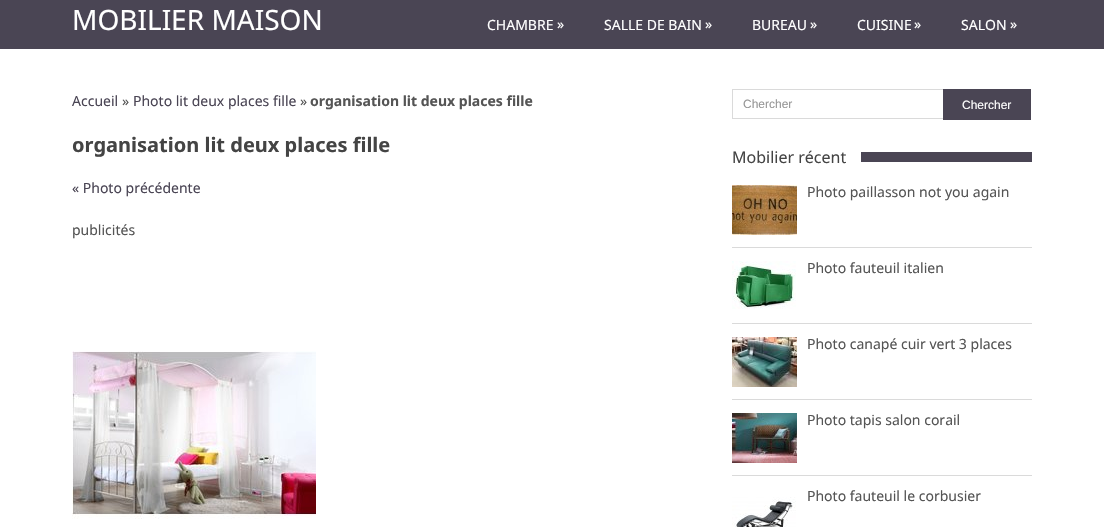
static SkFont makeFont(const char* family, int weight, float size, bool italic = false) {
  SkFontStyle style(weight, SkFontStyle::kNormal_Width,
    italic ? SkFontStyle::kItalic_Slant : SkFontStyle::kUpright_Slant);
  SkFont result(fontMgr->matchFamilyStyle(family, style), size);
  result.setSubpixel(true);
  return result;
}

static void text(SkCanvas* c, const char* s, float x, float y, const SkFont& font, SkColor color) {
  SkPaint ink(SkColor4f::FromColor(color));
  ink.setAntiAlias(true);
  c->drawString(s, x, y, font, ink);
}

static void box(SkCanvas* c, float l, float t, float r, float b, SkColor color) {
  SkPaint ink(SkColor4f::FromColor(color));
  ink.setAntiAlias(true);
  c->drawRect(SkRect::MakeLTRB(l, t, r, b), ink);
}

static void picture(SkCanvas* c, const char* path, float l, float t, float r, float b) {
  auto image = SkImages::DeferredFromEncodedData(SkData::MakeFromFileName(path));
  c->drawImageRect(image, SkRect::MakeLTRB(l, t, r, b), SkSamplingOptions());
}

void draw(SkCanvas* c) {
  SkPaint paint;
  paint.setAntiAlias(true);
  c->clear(0xffffffff);
  box(c, 0, 0, 1104, 49, 0xff4a4554);
  SkFont face1 = makeFont("Noto Sans", 400, 28);
  text(c, "MOBILIER MAISON", 72, 30, face1, 0xffffffff);
  SkFont face2 = makeFont("Noto Sans", 400, 14);
  text(c, "CHAMBRE", 487, 30, face2, 0xffffffff);
  text(c, "»", 557, 29, face2, 0xffffffff);
  text(c, "SALLE DE BAIN", 604, 30, face2, 0xffffffff);
  text(c, "»", 705, 29, face2, 0xffffffff);
  text(c, "BUREAU", 752, 30, face2, 0xffffffff);
  text(c, "»", 810, 29, face2, 0xffffffff);
  text(c, "CUISINE", 857, 30, face2, 0xffffffff);
  text(c, "»", 914, 29, face2, 0xffffffff);
  text(c, "SALON", 961, 30, face2, 0xffffffff);
  text(c, "»", 1010, 29, face2, 0xffffffff);
  text(c, "Accueil", 72, 106, face2, 0xff4a4554);
  text(c, "»", 122, 106, face2, 0xff555555);
  text(c, "Photo lit deux places fille", 133, 106, face2, 0xff4a4554);
  text(c, "»", 300, 106, face2, 0xff555555);
  SkFont face3 = makeFont("Noto Sans", 700, 14);
  text(c, "organisation lit deux places fille", 310, 106, face3, 0xff555555);
  SkFont face4 = makeFont("Noto Sans", 700, 20);
  text(c, "organisation lit deux places fille", 72, 152, face4, 0xff444444);
  text(c, "« Photo précédente", 72, 193, face2, 0xff4a4554);
  text(c, "publicités", 72, 235, face2, 0xff555555);
  picture(c, "img_01.png", 72, 351, 316, 519);
  box(c, 732, 89, 943, 90, 0xffdadada);
  box(c, 732, 118, 943, 119, 0xffdadada);
  box(c, 732, 89, 733, 119, 0xffdadada);
  SkFont face5 = makeFont("Liberation Sans", 400, 12);
  text(c, "Chercher", 743, 108, face5, 0xff969696);
  box(c, 943, 89, 1031, 120, 0xff4a4554);
  text(c, "Chercher", 962, 109, face5, 0xffffffff);
  box(c, 861, 152, 1032, 162, 0xff4a4554);
  SkFont face6 = makeFont("Noto Sans", 400, 16);
  text(c, "Mobilier récent", 732, 163, face6, 0xff444444);
  box(c, 732, 247, 1032, 248, 0xffdadada);
  picture(c, "img_02.png", 732, 185, 797, 235);
  text(c, "Photo paillasson not you again", 807, 197, face2, 0xff555555);
  box(c, 732, 323, 1032, 324, 0xffdadada);
  picture(c, "img_03.png", 732, 261, 796, 309);
  text(c, "Photo fauteuil italien", 807, 273, face2, 0xff555555);
  box(c, 732, 399, 1032, 400, 0xffdadada);
  picture(c, "img_04.png", 732, 337, 797, 387);
  text(c, "Photo canapé cuir vert 3 places", 807, 349, face2, 0xff555555);
  box(c, 732, 475, 1032, 476, 0xffdadada);
  picture(c, "img_05.png", 732, 413, 797, 463);
  text(c, "Photo tapis salon corail", 807, 425, face2, 0xff555555);
  picture(c, "img_06.png", 732, 497, 796, 527);
  text(c, "Photo fauteuil le corbusier", 807, 501, face2, 0xff555555);
}
